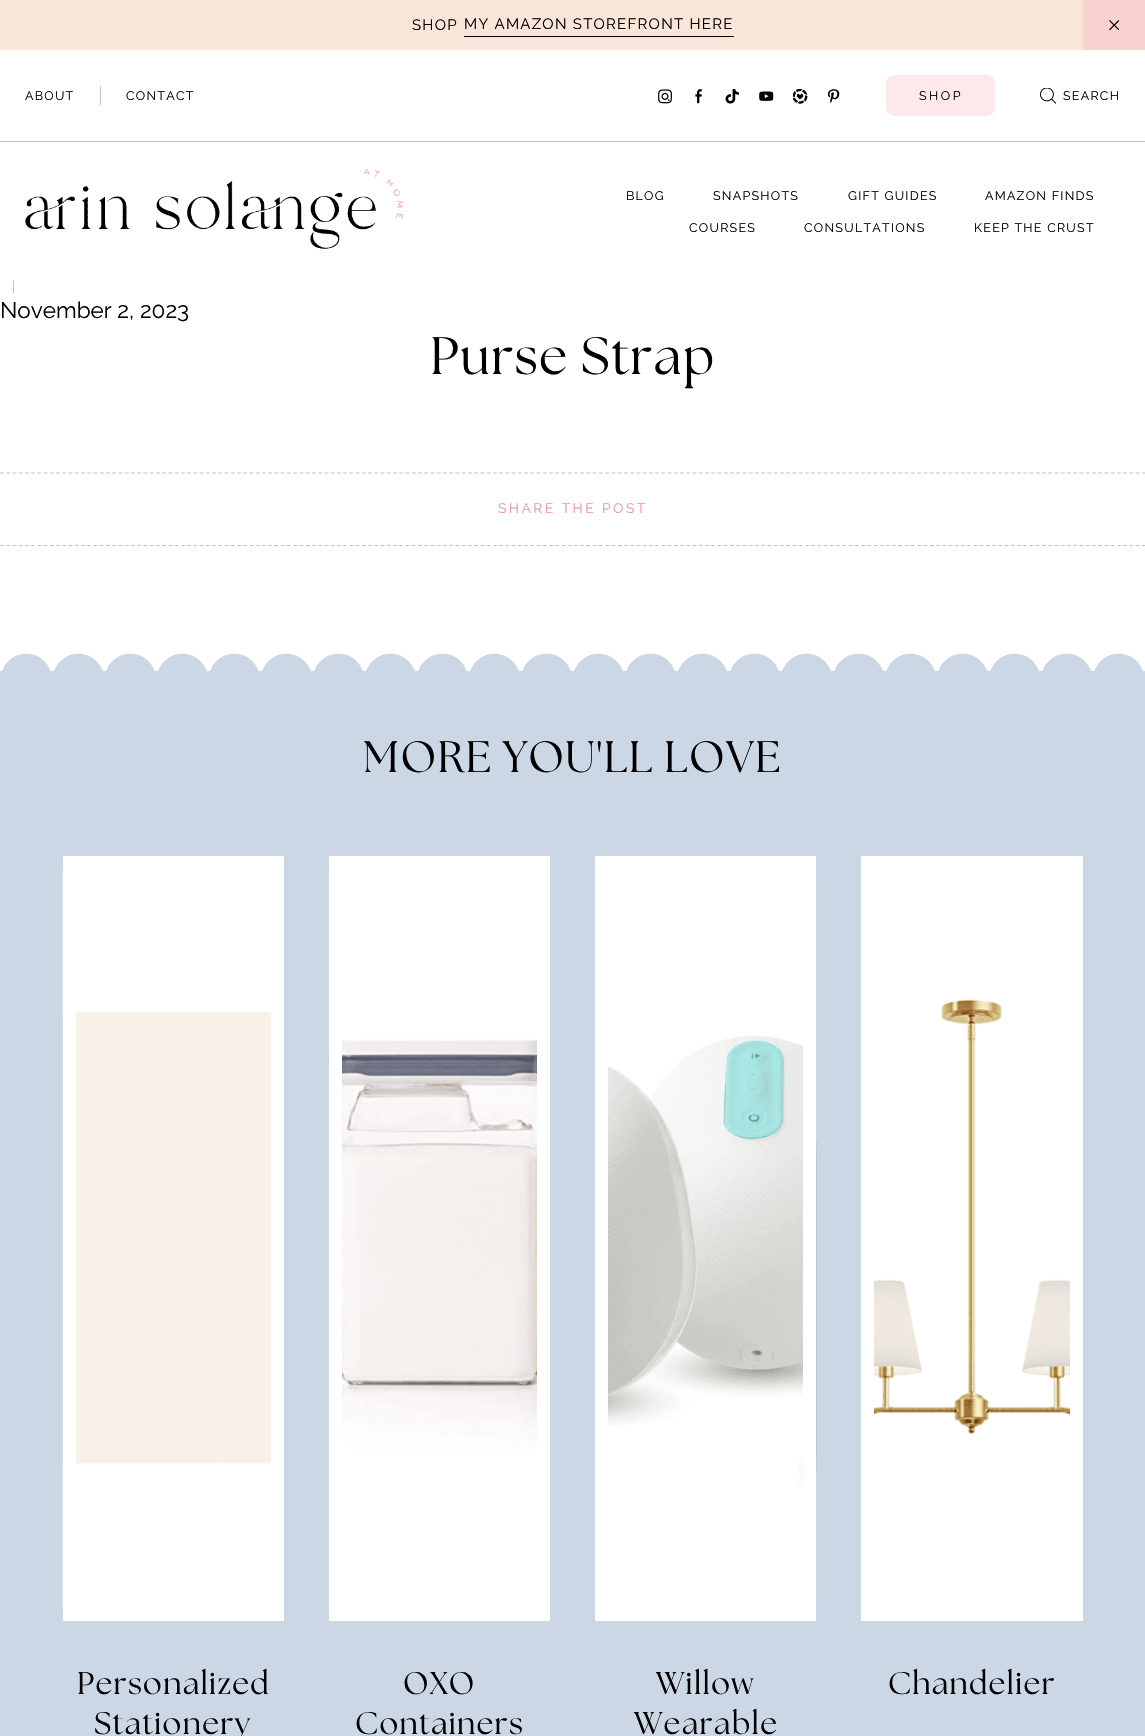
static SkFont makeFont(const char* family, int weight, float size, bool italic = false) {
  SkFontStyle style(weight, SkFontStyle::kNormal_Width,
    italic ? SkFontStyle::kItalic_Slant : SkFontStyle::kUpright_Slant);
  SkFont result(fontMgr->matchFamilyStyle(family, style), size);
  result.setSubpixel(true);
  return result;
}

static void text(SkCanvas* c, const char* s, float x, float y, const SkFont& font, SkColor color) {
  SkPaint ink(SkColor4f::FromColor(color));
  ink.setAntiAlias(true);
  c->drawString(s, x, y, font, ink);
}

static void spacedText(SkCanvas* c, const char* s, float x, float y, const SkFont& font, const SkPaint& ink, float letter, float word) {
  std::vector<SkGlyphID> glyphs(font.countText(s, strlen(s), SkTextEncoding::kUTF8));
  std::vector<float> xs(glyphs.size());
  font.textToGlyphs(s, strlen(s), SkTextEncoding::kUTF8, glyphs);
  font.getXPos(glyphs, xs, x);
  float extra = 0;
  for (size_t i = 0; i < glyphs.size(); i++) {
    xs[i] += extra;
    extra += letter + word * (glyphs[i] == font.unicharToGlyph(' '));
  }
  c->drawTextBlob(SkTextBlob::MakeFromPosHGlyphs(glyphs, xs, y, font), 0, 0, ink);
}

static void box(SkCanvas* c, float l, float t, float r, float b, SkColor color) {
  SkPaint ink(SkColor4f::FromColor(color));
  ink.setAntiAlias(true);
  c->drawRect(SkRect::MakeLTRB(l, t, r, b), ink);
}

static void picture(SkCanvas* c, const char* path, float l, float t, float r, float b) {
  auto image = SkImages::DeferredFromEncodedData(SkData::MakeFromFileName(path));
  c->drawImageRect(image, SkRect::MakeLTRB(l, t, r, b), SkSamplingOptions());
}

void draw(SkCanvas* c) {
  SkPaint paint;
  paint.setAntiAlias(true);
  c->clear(0xffffffff);
  box(c, 0, 0, 1083, 50, 0xfff9e6d9);
  SkFont face1 = makeFont("Raleway", 400, 15);
  paint.setColor(0xff000000);
  spacedText(c, "SHOP", 412, 30, face1, paint, 1.25f, 0);
  box(c, 464, 36, 734, 37, 0xff000000);
  spacedText(c, "MY AMAZON STOREFRONT HERE", 464, 29, face1, paint, 1.25f, 0);
  box(c, 1083, 0, 1145, 50, 0xfff8d2ce);
  picture(c, "img_01.png", 1109, 20, 1120, 31);
  box(c, 0, 141, 1145, 142, 0xffc1c1c1);
  box(c, 100, 86, 101, 105, 0xffc1c1c1);
  SkFont face2 = makeFont("Raleway", 400, 12.5f);
  spacedText(c, "ABOUT", 25, 100, face2, paint, 1.25f, 0);
  spacedText(c, "CONTACT", 126, 100, face2, paint, 1.25f, 0);
  picture(c, "img_02.png", 658, 89, 672, 104);
  picture(c, "img_03.png", 695, 89, 702, 104);
  picture(c, "img_04.png", 725, 89, 739, 104);
  picture(c, "img_05.png", 759, 91, 774, 101);
  picture(c, "img_06.png", 793, 89, 808, 104);
  picture(c, "img_07.png", 827, 89, 840, 103);
  paint.setColor(0xffffe8ea);
  c->drawRoundRect(SkRect::MakeLTRB(886.5f, 75.5f, 994.5f, 115.5f), 7.5f, 7.5f, paint);
  paint.setStyle(SkPaint::kStroke_Style);
  paint.setStrokeWidth(1);
  c->drawRoundRect(SkRect::MakeLTRB(886.5f, 75.5f, 994.5f, 115.5f), 7.5f, 7.5f, paint);
  paint.setStyle(SkPaint::kFill_Style);
  paint.setColor(0xff000000);
  spacedText(c, "SHOP", 919, 100, face2, paint, 2.5f, 0);
  picture(c, "img_08.png", 1040, 88, 1056, 104);
  spacedText(c, "SEARCH", 1063, 100, face2, paint, 1.25f, 0);
  picture(c, "img_09.png", 25, 168, 403, 249);
  spacedText(c, "BLOG", 626, 200, face2, paint, 1.25f, 0);
  spacedText(c, "SNAPSHOTS", 713, 200, face2, paint, 1.25f, 0);
  spacedText(c, "GIFT GUIDES", 848, 200, face2, paint, 1.25f, 0);
  spacedText(c, "AMAZON FINDS", 985, 200, face2, paint, 1.25f, 0);
  spacedText(c, "COURSES", 689, 232, face2, paint, 1.25f, 0);
  spacedText(c, "CONSULTATIONS", 804, 232, face2, paint, 1.25f, 0);
  spacedText(c, "KEEP THE CRUST", 974, 232, face2, paint, 1.25f, 0);
  box(c, 13, 280, 14, 293, 0xffc1c1c1);
  SkFont face3 = makeFont("Raleway", 400, 22.5f);
  text(c, "November 2, 2023", 0, 318, face3, 0xff000000);
  SkFont face4 = makeFont("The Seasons", 400, 52.5f);
  spacedText(c, "Purse Strap", 430, 374, face4, paint, 1.25f, 0);
  paint.setStyle(SkPaint::kStroke_Style);
  paint.setStrokeWidth(1.2f);
  paint.setColor(0xffc1c1c1);
  paint.setPathEffect(SkDashPathEffect::Make({{3.75f, 2.49f}}, 0));
  c->drawPath(SkPathBuilder().moveTo(0, 473).lineTo(1145, 473).detach(), paint);
  paint.setPathEffect(nullptr);
  paint.setPathEffect(SkDashPathEffect::Make({{3.75f, 2.49f}}, 0));
  c->drawPath(SkPathBuilder().moveTo(0, 545.5f).lineTo(1145, 545.5f).detach(), paint);
  paint.setPathEffect(nullptr);
  SkFont face5 = makeFont("Raleway", 400, 13.75f);
  paint.setStyle(SkPaint::kFill_Style);
  paint.setColor(0xffea99a1);
  spacedText(c, "SHARE THE POST", 498, 513, face5, paint, 2.5f, 0);
  box(c, 0, 671, 1145, 1736, 0xffccd7e5);
  picture(c, "img_10.png", 2, 653, 1143, 671);
  SkFont face6 = makeFont("The Seasons", 400, 43.75f);
  paint.setColor(0xff000000);
  spacedText(c, "MORE YOU'LL LOVE", 363, 772, face6, paint, 1.25f, 0);
  picture(c, "img_11.png", 62, 868, 271, 1609);
  paint.setStyle(SkPaint::kStroke_Style);
  paint.setStrokeWidth(13);
  paint.setColor(0xffffffff);
  c->drawRect(SkRect::MakeLTRB(69.5f, 862.5f, 277.5f, 1614.5f), paint);
  SkFont face7 = makeFont("The Seasons", 400, 31.25f);
  paint.setStyle(SkPaint::kFill_Style);
  paint.setColor(0xff000000);
  spacedText(c, "Personalized", 77, 1694, face7, paint, 1.25f, 0);
  spacedText(c, "Stationery", 94, 1734, face7, paint, 1.25f, 0);
  picture(c, "img_12.png", 328, 869, 537, 1609);
  paint.setStyle(SkPaint::kStroke_Style);
  paint.setColor(0xffffffff);
  c->drawRect(SkRect::MakeLTRB(335.5f, 862.5f, 543.5f, 1614.5f), paint);
  paint.setStyle(SkPaint::kFill_Style);
  paint.setColor(0xff000000);
  spacedText(c, "OXO", 403, 1694, face7, paint, 1.25f, 0);
  spacedText(c, "Containers", 355, 1734, face7, paint, 1.25f, 0);
  picture(c, "img_13.png", 608, 869, 817, 1609);
  paint.setStyle(SkPaint::kStroke_Style);
  paint.setColor(0xffffffff);
  c->drawRect(SkRect::MakeLTRB(601.5f, 862.5f, 809.5f, 1614.5f), paint);
  paint.setStyle(SkPaint::kFill_Style);
  paint.setColor(0xff000000);
  spacedText(c, "Willow", 656, 1694, face7, paint, 1.25f, 0);
  spacedText(c, "Wearable", 634, 1734, face7, paint, 1.25f, 0);
  picture(c, "img_14.png", 874, 869, 1070, 1608);
  paint.setStyle(SkPaint::kStroke_Style);
  paint.setColor(0xffffffff);
  c->drawRect(SkRect::MakeLTRB(867.5f, 862.5f, 1076.5f, 1614.5f), paint);
  paint.setStyle(SkPaint::kFill_Style);
  paint.setColor(0xff000000);
  spacedText(c, "Chandelier", 888, 1694, face7, paint, 1.25f, 0);
}
